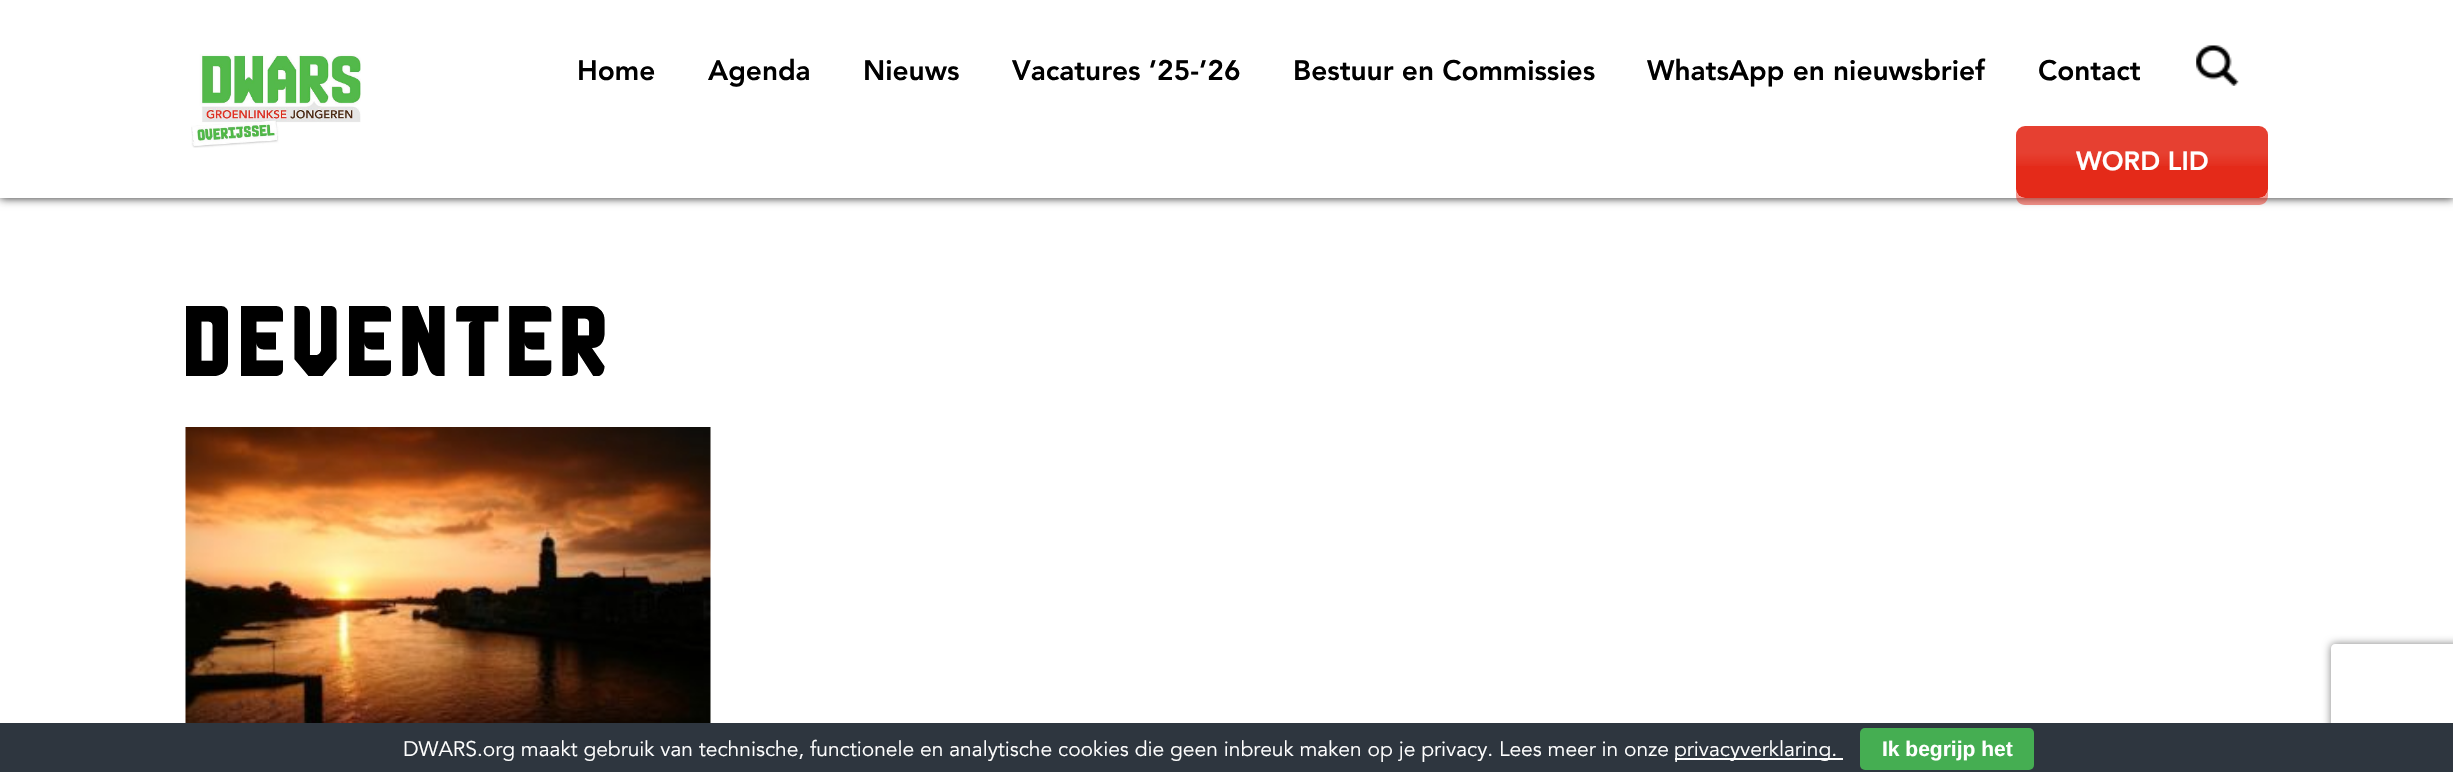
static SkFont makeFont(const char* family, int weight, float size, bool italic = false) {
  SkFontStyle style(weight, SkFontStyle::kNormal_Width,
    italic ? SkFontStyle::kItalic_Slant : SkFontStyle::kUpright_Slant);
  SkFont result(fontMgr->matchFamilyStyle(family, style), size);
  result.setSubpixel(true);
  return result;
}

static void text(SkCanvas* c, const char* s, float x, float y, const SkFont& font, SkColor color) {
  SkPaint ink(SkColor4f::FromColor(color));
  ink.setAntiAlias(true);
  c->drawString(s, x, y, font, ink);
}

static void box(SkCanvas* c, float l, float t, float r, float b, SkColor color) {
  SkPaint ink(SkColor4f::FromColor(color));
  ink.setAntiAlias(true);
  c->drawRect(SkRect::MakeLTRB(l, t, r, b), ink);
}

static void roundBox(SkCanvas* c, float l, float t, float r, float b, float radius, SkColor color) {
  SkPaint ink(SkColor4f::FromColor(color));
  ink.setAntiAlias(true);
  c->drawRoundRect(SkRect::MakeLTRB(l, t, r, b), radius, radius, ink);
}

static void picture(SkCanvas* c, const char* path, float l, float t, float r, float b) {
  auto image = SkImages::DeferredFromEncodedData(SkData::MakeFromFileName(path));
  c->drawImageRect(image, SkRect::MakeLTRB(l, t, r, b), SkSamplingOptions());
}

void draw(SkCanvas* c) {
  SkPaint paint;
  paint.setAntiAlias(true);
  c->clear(0xffffffff);
  paint.setColor(0xff232323);
  paint.setMaskFilter(SkMaskFilter::MakeBlur(kNormal_SkBlurStyle, 4.5f));
  c->drawRect(SkRect::MakeLTRB(0, 0, 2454, 198), paint);
  paint.setMaskFilter(nullptr);
  box(c, 0, 0, 2453, 198, 0xffffffff);
  picture(c, "img_01.png", 191, 54, 361, 148);
  SkFont face1 = makeFont("Avenir", 900, 28);
  text(c, "Home", 577, 80, face1, 0xff000000);
  text(c, "Agenda", 708, 80, face1, 0xff000000);
  text(c, "Nieuws", 863, 80, face1, 0xff000000);
  text(c, "Vacatures ’25-’26", 1012, 80, face1, 0xff000000);
  text(c, "Bestuur en Commissies", 1293, 80, face1, 0xff000000);
  text(c, "WhatsApp en nieuwsbrief", 1647, 80, face1, 0xff000000);
  text(c, "Contact", 2038, 80, face1, 0xff000000);
  picture(c, "img_02.png", 2196, 45, 2239, 86);
  paint.setColor(0x80e42a19);
  c->drawPath(SkPathBuilder().moveTo(2016, 189).lineTo(2016, 196).cubicTo(2016, 201, 2020, 205, 2025, 205).lineTo(2259, 205).cubicTo(2264, 205, 2268, 201, 2268, 196).lineTo(2268, 189).cubicTo(2268, 194, 2264, 198, 2259, 198).lineTo(2025, 198).cubicTo(2020, 198, 2016, 194, 2016, 189).close().detach(), paint);
  roundBox(c, 2016, 126, 2268, 198, 9, 0xffe42a19);
  {
    const SkColor colors[] = {0x1affffff, 0x1affffff, 0x00ffffff};
    const float stops[] = {0, 0.37f, 0.6f};
    const SkPoint ends[] = {{2142, 126}, {2142, 198}};
    paint.setShader(SkGradientShader::MakeLinear(ends, colors, stops, 3, SkTileMode::kClamp));
    paint.setAlpha(255);
  }
  c->drawRect(SkRect::MakeLTRB(2016, 126, 2268, 166), paint);
  SkFont face2 = makeFont("Avenir", 900, 26.25f);
  text(c, "WORD LID", 2076, 170, face2, 0xffffffff);
  SkFont face3 = makeFont("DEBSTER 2", 400, 70);
  text(c, "DEVENTER", 186, 376, face3, 0xff000000);
  picture(c, "img_03.png", 185, 427, 711, 723);
  c->save();
  c->clipPath(SkPathBuilder(SkPathFillType::kEvenOdd).moveTo(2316, 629).lineTo(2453, 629).lineTo(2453, 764).lineTo(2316, 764).close().moveTo(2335, 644).lineTo(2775, 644).cubicTo(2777, 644, 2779, 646, 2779, 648).lineTo(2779, 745).cubicTo(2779, 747, 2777, 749, 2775, 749).lineTo(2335, 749).cubicTo(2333, 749, 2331, 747, 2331, 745).lineTo(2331, 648).cubicTo(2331, 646, 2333, 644, 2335, 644).close().detach(), true);
  paint.setShader(nullptr);
  paint.setColor(0xff808080);
  paint.setMaskFilter(SkMaskFilter::MakeBlur(kNormal_SkBlurStyle, 4.5f));
  c->drawRoundRect(SkRect::MakeLTRB(2331, 644, 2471, 749), 4, 4, paint);
  paint.setMaskFilter(nullptr);
  c->restore();
  box(c, 0, 723, 2453, 772, 0xff2e363f);
  SkFont face4 = makeFont("Avenir", 400, 21);
  text(c, "DWARS.org maakt gebruik van technische, functionele en analytische cookies die geen inbreuk maken op je privacy. Lees meer in onze", 403, 756, face4, 0xffffffff);
  box(c, 1675, 758, 1843, 760, 0xffffffff);
  text(c, "privacyverklaring.", 1674, 756, face4, 0xffffffff);
  roundBox(c, 1860, 728, 2034, 770, 5, 0xff45ae52);
  SkFont face5 = makeFont("Liberation Sans", 700, 21);
  text(c, "Ik begrijp het", 1882, 756, face5, 0xffffffff);
}
